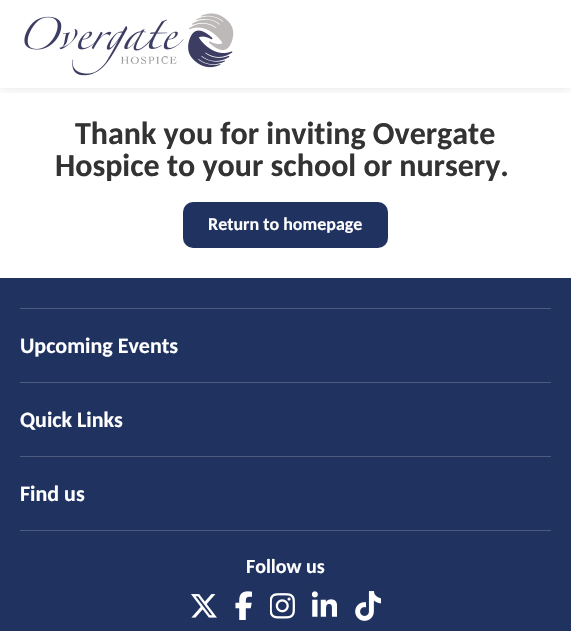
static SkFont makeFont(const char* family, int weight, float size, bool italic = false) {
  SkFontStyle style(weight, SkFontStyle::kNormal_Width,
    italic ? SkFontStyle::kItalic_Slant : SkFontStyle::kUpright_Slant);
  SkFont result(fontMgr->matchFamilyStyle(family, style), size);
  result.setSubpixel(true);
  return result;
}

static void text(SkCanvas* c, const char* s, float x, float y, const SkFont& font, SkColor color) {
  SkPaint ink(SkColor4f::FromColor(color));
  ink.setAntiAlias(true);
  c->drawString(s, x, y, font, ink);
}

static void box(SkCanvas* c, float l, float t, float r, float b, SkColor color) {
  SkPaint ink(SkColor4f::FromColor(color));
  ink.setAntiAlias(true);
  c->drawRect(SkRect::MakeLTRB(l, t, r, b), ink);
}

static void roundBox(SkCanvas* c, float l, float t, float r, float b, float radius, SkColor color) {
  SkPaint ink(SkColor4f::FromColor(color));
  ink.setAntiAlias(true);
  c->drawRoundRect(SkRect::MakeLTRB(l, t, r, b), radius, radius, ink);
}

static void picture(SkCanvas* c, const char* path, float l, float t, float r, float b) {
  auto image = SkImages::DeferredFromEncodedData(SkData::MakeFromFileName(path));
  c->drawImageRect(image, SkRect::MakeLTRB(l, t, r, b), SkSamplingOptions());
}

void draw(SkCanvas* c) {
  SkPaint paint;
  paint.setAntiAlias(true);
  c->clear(0xffffffff);
  c->save();
  c->clipRect(SkRect::MakeLTRB(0, 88, 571, 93));
  paint.setColor(0x1a000000);
  paint.setMaskFilter(SkMaskFilter::MakeBlur(kNormal_SkBlurStyle, 6));
  c->drawRect(SkRect::MakeLTRB(0, 0, 571, 88), paint);
  paint.setMaskFilter(nullptr);
  c->restore();
  picture(c, "img_01.png", 24, 13, 234, 76);
  SkFont face1 = makeFont("Carlito", 700, 32);
  text(c, "Thank you for inviting Overgate", 75, 144, face1, 0xff333333);
  text(c, "Hospice to your school or nursery.", 55, 176, face1, 0xff333333);
  roundBox(c, 183, 202, 388, 248, 10, 0xff203260);
  SkFont face2 = makeFont("Carlito", 700, 18);
  text(c, "Return to homepage", 208, 230, face2, 0xffffffff);
  box(c, 0, 278, 571, 631, 0xff203260);
  box(c, 20, 308, 551, 309, 0xff4d5b80);
  SkFont face3 = makeFont("Carlito", 700, 22);
  text(c, "Upcoming Events", 20, 353, face3, 0xffffffff);
  box(c, 20, 382, 551, 383, 0xff4d5b80);
  text(c, "Quick Links", 20, 427, face3, 0xffffffff);
  box(c, 20, 456, 551, 457, 0xff4d5b80);
  box(c, 20, 530, 551, 531, 0xff4d5b80);
  text(c, "Find us", 20, 501, face3, 0xffffffff);
  SkFont face4 = makeFont("Carlito", 700, 20);
  text(c, "Follow us", 246, 573, face4, 0xffffffff);
  picture(c, "img_02.png", 191, 594, 217, 618);
  picture(c, "img_03.png", 235, 591, 252, 620);
  picture(c, "img_04.png", 270, 593, 295, 619);
  picture(c, "img_05.png", 312, 591, 337, 617);
  picture(c, "img_06.png", 355, 591, 381, 621);
}
